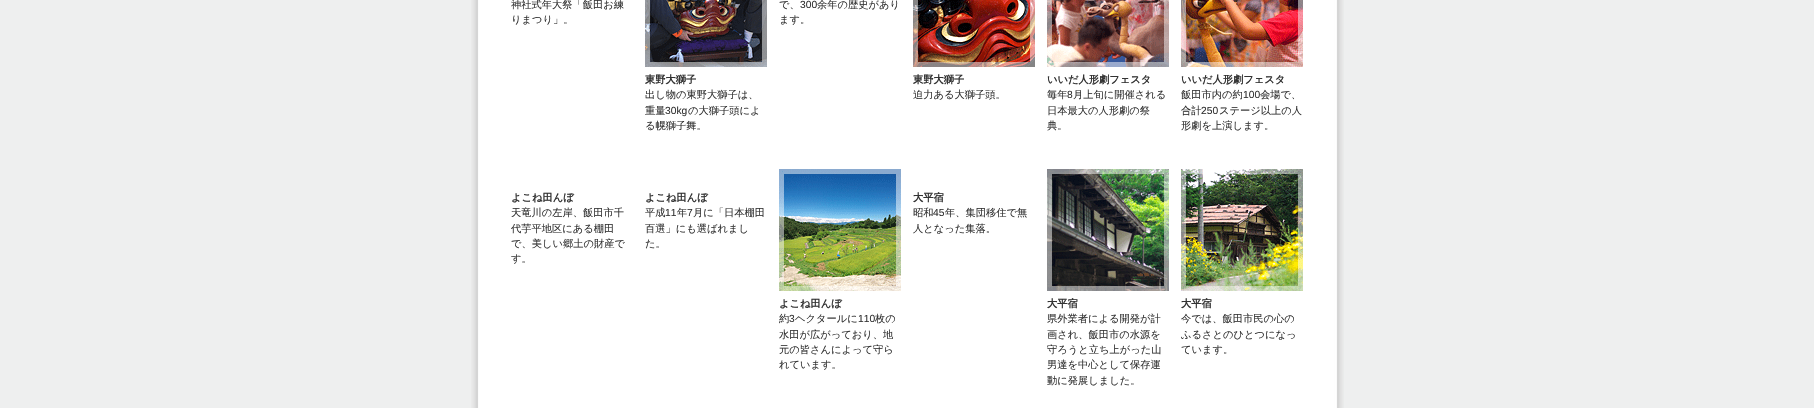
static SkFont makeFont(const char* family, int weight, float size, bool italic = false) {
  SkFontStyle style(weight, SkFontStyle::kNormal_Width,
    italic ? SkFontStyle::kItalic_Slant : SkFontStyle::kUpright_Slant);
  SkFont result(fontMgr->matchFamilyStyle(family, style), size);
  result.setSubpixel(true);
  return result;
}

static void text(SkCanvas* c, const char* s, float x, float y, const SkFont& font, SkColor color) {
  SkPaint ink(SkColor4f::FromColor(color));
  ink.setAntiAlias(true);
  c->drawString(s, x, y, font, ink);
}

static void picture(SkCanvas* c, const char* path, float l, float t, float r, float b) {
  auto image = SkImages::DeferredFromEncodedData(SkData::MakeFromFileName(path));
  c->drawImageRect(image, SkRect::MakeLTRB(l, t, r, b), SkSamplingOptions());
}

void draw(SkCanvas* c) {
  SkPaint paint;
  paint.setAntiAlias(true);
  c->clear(0xffeeefef);
  picture(c, "img_01.png", 471, 0, 1344, 408);
  SkFont face1 = makeFont("WenQuanYi Zen Hei", 500, 10.25f);
  text(c, "神社式年大祭「飯田お練", 511, 8, face1, 0xff333333);
  text(c, "りまつり」。", 511, 23, face1, 0xff333333);
  text(c, "で、", 779, 8, face1, 0xff333333);
  SkFont face2 = makeFont("Liberation Sans", 400, 10.25f);
  text(c, "300", 800, 8, face2, 0xff333333);
  text(c, "余年の歴史があり", 817, 8, face1, 0xff333333);
  text(c, "ます。", 779, 23, face1, 0xff333333);
  picture(c, "img_02.png", 645, 0, 767, 67);
  SkFont face3 = makeFont("WenQuanYi Zen Hei", 700, 10.25f);
  text(c, "東野大獅子", 645, 83, face3, 0xff333333);
  text(c, "出し物の東野大獅子は、", 645, 98, face1, 0xff333333);
  text(c, "重量", 645, 114, face1, 0xff333333);
  text(c, "30kg", 665, 114, face2, 0xff333333);
  text(c, "の大獅子頭によ", 688, 114, face1, 0xff333333);
  text(c, "る幌獅子舞。", 645, 129, face1, 0xff333333);
  picture(c, "img_03.png", 913, 0, 1035, 67);
  text(c, "東野大獅子", 913, 83, face3, 0xff333333);
  text(c, "迫力ある大獅子頭。", 913, 98, face1, 0xff333333);
  picture(c, "img_04.png", 1047, 0, 1169, 67);
  text(c, "いいだ人形劇フェスタ", 1047, 83, face3, 0xff333333);
  text(c, "毎年", 1047, 98, face1, 0xff333333);
  text(c, "8", 1067, 98, face2, 0xff333333);
  text(c, "月上旬に開催される", 1073, 98, face1, 0xff333333);
  text(c, "日本最大の人形劇の祭", 1047, 114, face1, 0xff333333);
  text(c, "典。", 1047, 129, face1, 0xff333333);
  picture(c, "img_05.png", 1181, 0, 1303, 67);
  text(c, "いいだ人形劇フェスタ", 1181, 83, face3, 0xff333333);
  text(c, "飯田市内の約", 1181, 98, face1, 0xff333333);
  text(c, "100", 1243, 98, face2, 0xff333333);
  text(c, "会場で、", 1260, 98, face1, 0xff333333);
  text(c, "合計", 1181, 114, face1, 0xff333333);
  text(c, "250", 1201, 114, face2, 0xff333333);
  text(c, "ステージ以上の人", 1219, 114, face1, 0xff333333);
  text(c, "形劇を上演します。", 1181, 129, face1, 0xff333333);
  text(c, "よこね田んぼ", 511, 201, face3, 0xff333333);
  text(c, "天竜川の左岸、飯田市千", 511, 216, face1, 0xff333333);
  text(c, "代芋平地区にある棚田", 511, 232, face1, 0xff333333);
  text(c, "で、美しい郷土の財産で", 511, 247, face1, 0xff333333);
  text(c, "す。", 511, 262, face1, 0xff333333);
  text(c, "よこね田んぼ", 645, 201, face3, 0xff333333);
  text(c, "平成", 645, 216, face1, 0xff333333);
  text(c, "11", 665, 216, face2, 0xff333333);
  text(c, "年", 677, 216, face1, 0xff333333);
  text(c, "7", 687, 216, face2, 0xff333333);
  text(c, "月に「日本棚田", 693, 216, face1, 0xff333333);
  text(c, "百選」にも選ばれまし", 645, 232, face1, 0xff333333);
  text(c, "た。", 645, 247, face1, 0xff333333);
  text(c, "大平宿", 913, 201, face3, 0xff333333);
  text(c, "昭和", 913, 216, face1, 0xff333333);
  text(c, "45", 933, 216, face2, 0xff333333);
  text(c, "年、集団移住で無", 945, 216, face1, 0xff333333);
  text(c, "人となった集落。", 913, 232, face1, 0xff333333);
  picture(c, "img_06.png", 779, 169, 901, 291);
  text(c, "よこね田んぼ", 779, 307, face3, 0xff333333);
  text(c, "約", 779, 322, face1, 0xff333333);
  text(c, "3", 789, 322, face2, 0xff333333);
  text(c, "ヘクタールに", 795, 322, face1, 0xff333333);
  text(c, "110", 858, 322, face2, 0xff333333);
  text(c, "枚の", 875, 322, face1, 0xff333333);
  text(c, "水田が広がっており、地", 779, 338, face1, 0xff333333);
  text(c, "元の皆さんによって守ら", 779, 353, face1, 0xff333333);
  text(c, "れています。", 779, 368, face1, 0xff333333);
  picture(c, "img_07.png", 1047, 169, 1169, 291);
  text(c, "大平宿", 1047, 307, face3, 0xff333333);
  text(c, "県外業者による開発が計", 1047, 322, face1, 0xff333333);
  text(c, "画され、飯田市の水源を", 1047, 338, face1, 0xff333333);
  text(c, "守ろうと立ち上がった山", 1047, 353, face1, 0xff333333);
  text(c, "男達を中心として保存運", 1047, 368, face1, 0xff333333);
  text(c, "動に発展しました。", 1047, 384, face1, 0xff333333);
  picture(c, "img_08.png", 1181, 169, 1303, 291);
  text(c, "大平宿", 1181, 307, face3, 0xff333333);
  text(c, "今では、飯田市民の心の", 1181, 322, face1, 0xff333333);
  text(c, "ふるさとのひとつになっ", 1181, 338, face1, 0xff333333);
  text(c, "ています。", 1181, 353, face1, 0xff333333);
}
